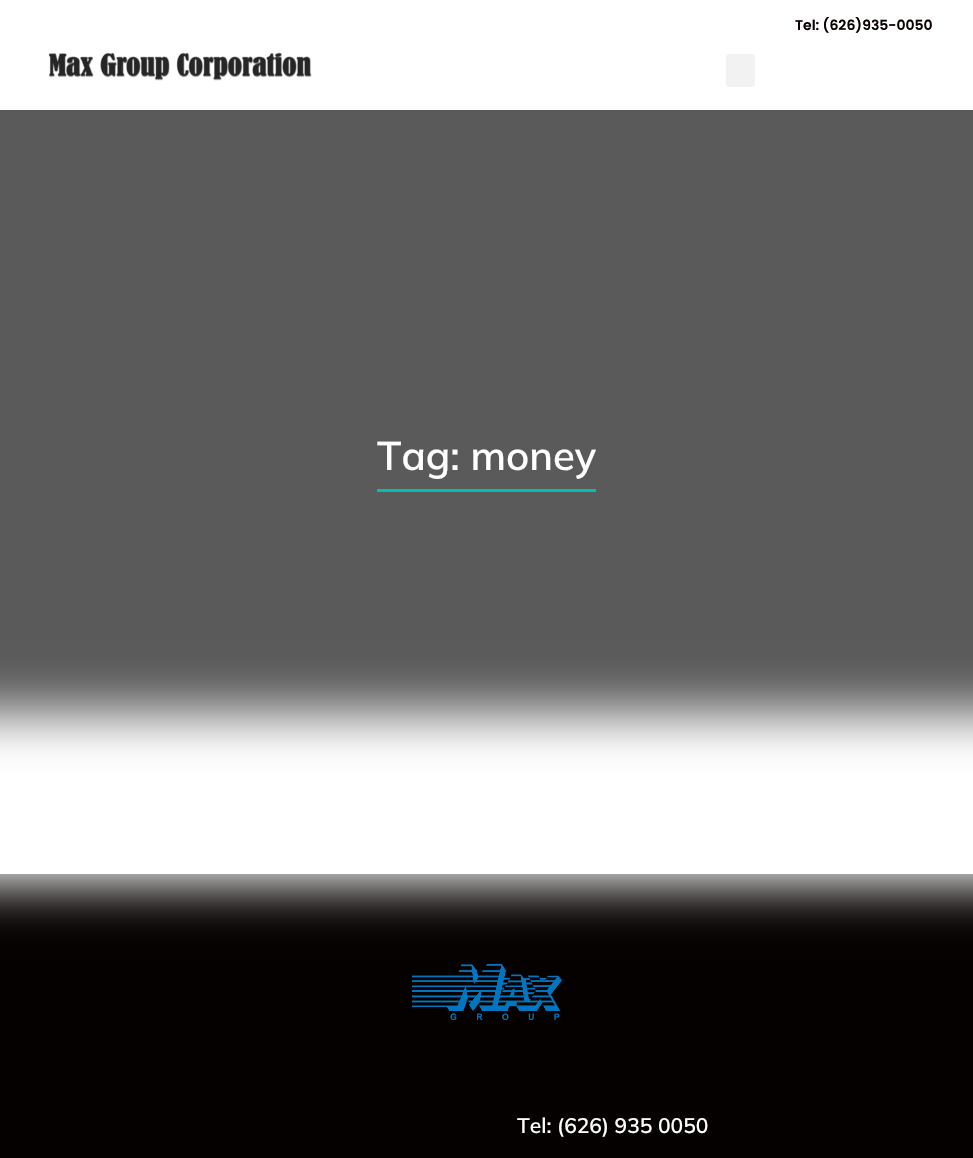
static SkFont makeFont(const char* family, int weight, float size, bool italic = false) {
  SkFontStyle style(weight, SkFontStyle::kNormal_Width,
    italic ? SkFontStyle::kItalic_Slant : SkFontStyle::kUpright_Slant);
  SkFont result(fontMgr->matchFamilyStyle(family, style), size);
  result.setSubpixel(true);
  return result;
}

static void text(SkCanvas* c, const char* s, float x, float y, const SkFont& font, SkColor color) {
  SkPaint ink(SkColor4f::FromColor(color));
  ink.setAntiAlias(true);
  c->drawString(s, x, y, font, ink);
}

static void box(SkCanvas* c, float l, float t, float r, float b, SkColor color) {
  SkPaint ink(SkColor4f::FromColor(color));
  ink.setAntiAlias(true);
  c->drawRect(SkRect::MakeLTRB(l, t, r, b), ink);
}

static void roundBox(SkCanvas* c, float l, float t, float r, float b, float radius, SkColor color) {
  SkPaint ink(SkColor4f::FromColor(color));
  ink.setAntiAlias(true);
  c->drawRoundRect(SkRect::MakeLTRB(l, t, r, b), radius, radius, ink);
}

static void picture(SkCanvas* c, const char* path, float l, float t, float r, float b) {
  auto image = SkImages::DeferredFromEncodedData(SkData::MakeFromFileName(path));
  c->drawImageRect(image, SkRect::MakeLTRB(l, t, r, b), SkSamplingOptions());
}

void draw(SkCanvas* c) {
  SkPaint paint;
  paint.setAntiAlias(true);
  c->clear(0xffffffff);
  SkFont face1 = makeFont("Poppins", 600, 14);
  text(c, "Tel: (626)935-0050", 795, 30, face1, 0xff0a0101);
  picture(c, "img_01.png", 48, 52, 312, 81);
  roundBox(c, 726, 54, 755, 87, 3, 0xfff2f2f2);
  box(c, 0, 110, 973, 783, 0xff5a5a5a);
  box(c, 377, 489, 596, 492, 0xff00c0b0);
  SkFont face2 = makeFont("Mulish", 600, 40);
  text(c, "Tag: money", 377, 470, face2, 0xffffffff);
  box(c, 0, 874, 973, 1158, 0xff060101);
  c->save();
  c->clipPath(SkPathBuilder(SkPathFillType::kEvenOdd).moveTo(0, 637).lineTo(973, 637).lineTo(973, 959).lineTo(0, 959).close().moveTo(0, 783).lineTo(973, 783).lineTo(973, 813).lineTo(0, 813).close().detach(), true);
  paint.setColor(0xffffffff);
  paint.setMaskFilter(SkMaskFilter::MakeBlur(kNormal_SkBlurStyle, 25));
  c->drawRect(SkRect::MakeLTRB(-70, 713, 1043, 883), paint);
  paint.setMaskFilter(nullptr);
  c->restore();
  picture(c, "img_02.png", 412, 964, 562, 1020);
  SkFont face3 = makeFont("Mulish", 600, 21);
  text(c, "Tel: (626) 935 0050", 517, 1133, face3, 0xffffffff);
}
